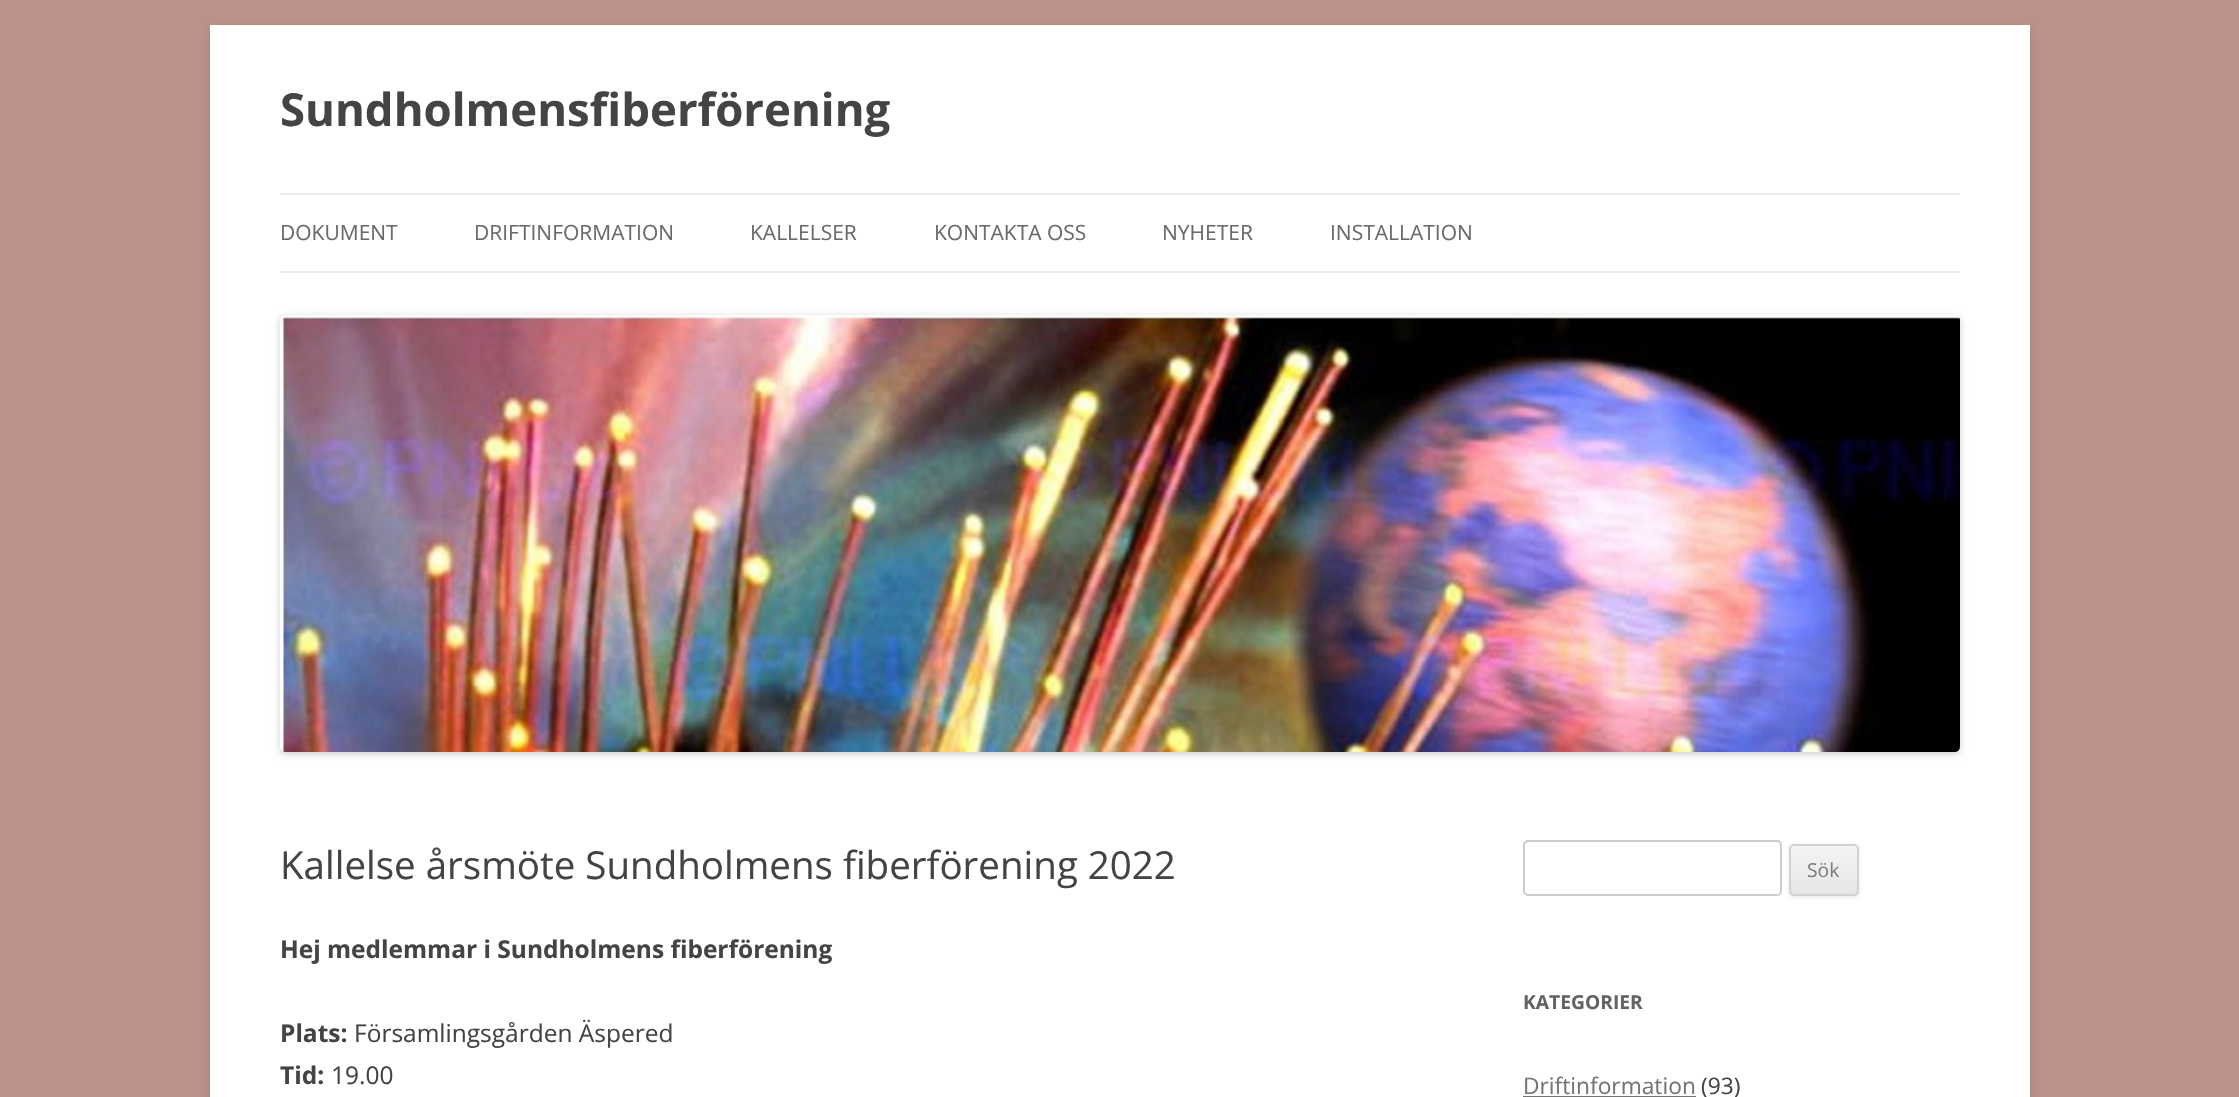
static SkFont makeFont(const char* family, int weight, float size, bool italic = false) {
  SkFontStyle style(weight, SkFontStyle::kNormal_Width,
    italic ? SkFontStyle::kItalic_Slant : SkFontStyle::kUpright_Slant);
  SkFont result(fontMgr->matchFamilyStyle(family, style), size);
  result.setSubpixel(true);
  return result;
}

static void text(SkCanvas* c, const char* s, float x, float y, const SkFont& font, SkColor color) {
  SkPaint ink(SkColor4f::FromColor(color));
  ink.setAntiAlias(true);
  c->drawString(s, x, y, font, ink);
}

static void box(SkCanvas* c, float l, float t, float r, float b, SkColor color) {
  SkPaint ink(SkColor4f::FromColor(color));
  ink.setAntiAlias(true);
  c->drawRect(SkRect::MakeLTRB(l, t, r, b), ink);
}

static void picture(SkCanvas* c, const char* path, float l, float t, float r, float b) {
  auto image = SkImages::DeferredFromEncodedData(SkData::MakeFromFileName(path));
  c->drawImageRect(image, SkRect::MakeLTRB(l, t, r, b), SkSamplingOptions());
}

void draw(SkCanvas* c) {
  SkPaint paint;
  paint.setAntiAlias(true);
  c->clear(0xffba928b);
  paint.setColor(0x4d646464);
  paint.setMaskFilter(SkMaskFilter::MakeBlur(kNormal_SkBlurStyle, 5));
  c->drawRect(SkRect::MakeLTRB(210, 28, 2030, 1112), paint);
  paint.setMaskFilter(nullptr);
  box(c, 210, 25, 2030, 1097, 0xffffffff);
  SkFont face1 = makeFont("Open Sans", 700, 45.5f);
  text(c, "Sundholmensfiberförening", 280, 126, face1, 0xff444444);
  box(c, 280, 193, 1960, 195, 0xffededed);
  box(c, 280, 271, 1960, 273, 0xffededed);
  SkFont face2 = makeFont("Open Sans", 400, 21);
  text(c, "DOKUMENT", 280, 240, face2, 0xff6a6a6a);
  text(c, "DRIFTINFORMATION", 474, 240, face2, 0xff6a6a6a);
  text(c, "KALLELSER", 750, 240, face2, 0xff6a6a6a);
  text(c, "KONTAKTA OSS", 934, 240, face2, 0xff6a6a6a);
  text(c, "NYHETER", 1162, 240, face2, 0xff6a6a6a);
  text(c, "INSTALLATION", 1330, 240, face2, 0xff6a6a6a);
  paint.setColor(0x33000000);
  paint.setMaskFilter(SkMaskFilter::MakeBlur(kNormal_SkBlurStyle, 3.5f));
  c->drawRoundRect(SkRect::MakeLTRB(280, 317, 1960, 754), 5, 5, paint);
  paint.setMaskFilter(nullptr);
  picture(c, "img_01.png", 280, 315, 1960, 752);
  SkFont face3 = makeFont("Open Sans", 400, 38.5f);
  text(c, "Kallelse årsmöte Sundholmens fiberförening 2022", 280, 879, face3, 0xff444444);
  SkFont face4 = makeFont("Open Sans", 700, 24.5f);
  text(c, "Hej medlemmar i Sundholmens fiberförening", 280, 958, face4, 0xff444444);
  text(c, "Plats:", 280, 1042, face4, 0xff444444);
  SkFont face5 = makeFont("Open Sans", 400, 24.5f);
  text(c, "Församlingsgården Äspered", 354, 1042, face5, 0xff444444);
  text(c, "Tid:", 280, 1084, face4, 0xff444444);
  text(c, "19.00", 331, 1084, face5, 0xff444444);
  paint.setStyle(SkPaint::kStroke_Style);
  paint.setStrokeWidth(2);
  paint.setColor(0xffcccccc);
  c->drawRoundRect(SkRect::MakeLTRB(1524, 841, 1781, 895), 4, 4, paint);
  paint.setStyle(SkPaint::kFill_Style);
  paint.setColor(0x1a404040);
  paint.setMaskFilter(SkMaskFilter::MakeBlur(kNormal_SkBlurStyle, 2));
  c->drawRoundRect(SkRect::MakeLTRB(1789, 845, 1859, 898), 5, 5, paint);
  paint.setMaskFilter(nullptr);
  c->save();
  c->clipPath(SkPathBuilder().moveTo(1794, 844).lineTo(1854, 844).cubicTo(1857, 844, 1859, 846, 1859, 849).lineTo(1859, 891).cubicTo(1859, 894, 1857, 896, 1854, 896).lineTo(1794, 896).cubicTo(1791, 896, 1789, 894, 1789, 891).lineTo(1789, 849).cubicTo(1789, 846, 1791, 844, 1794, 844).close().detach(), true);
  {
    const SkColor colors[] = {0xfff4f4f4, 0xffe6e6e6};
    const float stops[] = {0, 1};
    const SkPoint ends[] = {{1824, 845}, {1824, 894}};
    paint.setShader(SkGradientShader::MakeLinear(ends, colors, stops, 2, SkTileMode::kClamp));
    paint.setAlpha(255);
  }
  c->drawRect(SkRect::MakeLTRB(1789, 845, 1859, 894), paint);
  c->restore();
  paint.setStyle(SkPaint::kStroke_Style);
  paint.setShader(nullptr);
  paint.setColor(0xffd2d2d2);
  c->drawRoundRect(SkRect::MakeLTRB(1790, 845, 1858, 895), 4, 4, paint);
  SkFont face6 = makeFont("Open Sans", 400, 19.25f);
  text(c, "Sök", 1807, 877, face6, 0xff7c7c7c);
  SkFont face7 = makeFont("Open Sans", 700, 19.25f);
  text(c, "KATEGORIER", 1523, 1009, face7, 0xff636363);
  SkFont face8 = makeFont("Open Sans", 400, 22.75f);
  text(c, "Driftinformation", 1523, 1094, face8, 0xff757575);
  box(c, 1523, 1096, 1696, 1097, 0xff757575);
  text(c, "(93)", 1701, 1094, face8, 0xff444444);
}
